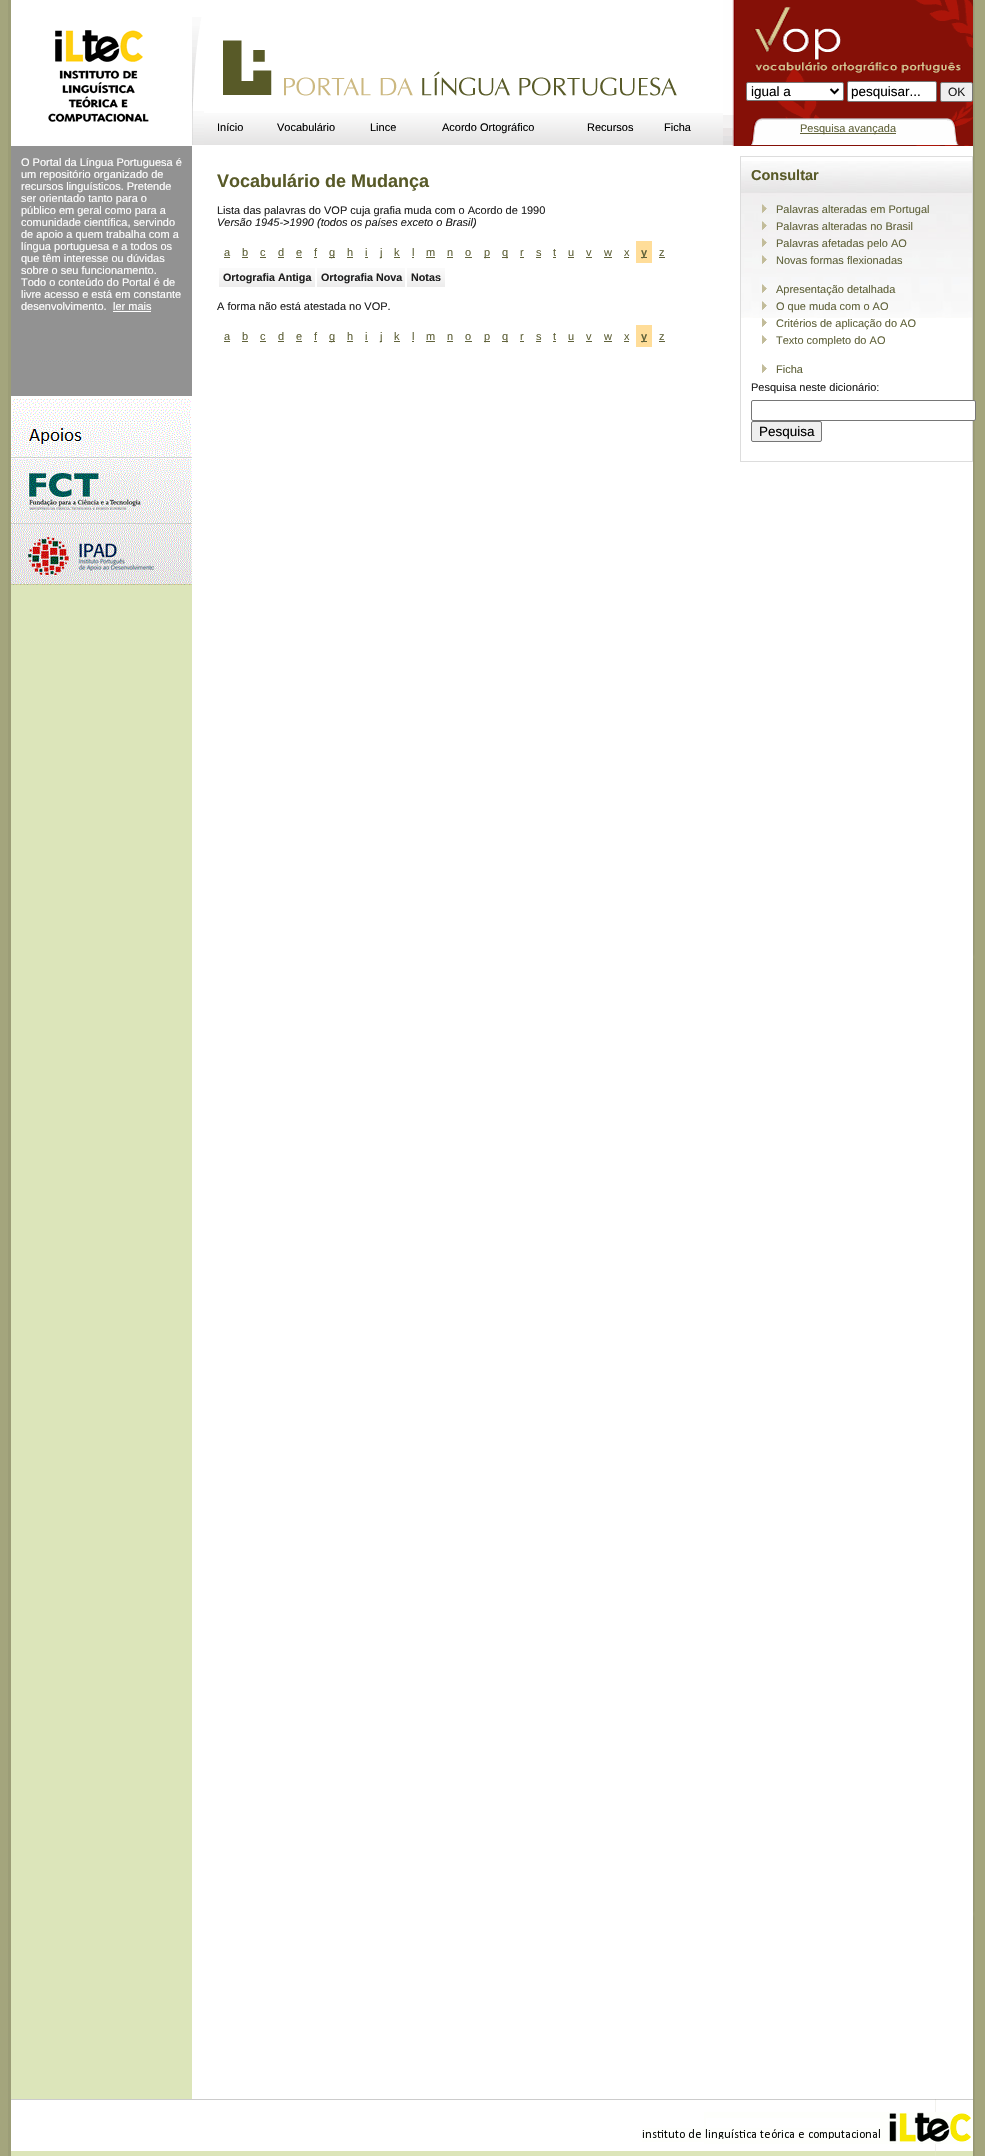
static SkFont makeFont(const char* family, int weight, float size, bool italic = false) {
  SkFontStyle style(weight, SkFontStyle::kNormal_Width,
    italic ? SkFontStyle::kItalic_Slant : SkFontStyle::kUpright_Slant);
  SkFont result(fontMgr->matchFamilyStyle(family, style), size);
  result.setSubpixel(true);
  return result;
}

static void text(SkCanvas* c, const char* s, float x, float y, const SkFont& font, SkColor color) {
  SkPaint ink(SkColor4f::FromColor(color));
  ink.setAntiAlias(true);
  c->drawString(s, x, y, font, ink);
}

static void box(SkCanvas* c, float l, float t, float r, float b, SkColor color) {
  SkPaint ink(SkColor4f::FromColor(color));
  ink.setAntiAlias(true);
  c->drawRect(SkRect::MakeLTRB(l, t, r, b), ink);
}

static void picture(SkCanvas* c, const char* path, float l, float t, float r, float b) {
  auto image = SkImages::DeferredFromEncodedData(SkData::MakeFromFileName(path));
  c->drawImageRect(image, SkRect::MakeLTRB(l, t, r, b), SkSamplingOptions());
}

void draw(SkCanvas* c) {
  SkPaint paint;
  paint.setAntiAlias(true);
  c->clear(0xffa4a57d);
  box(c, 8, 0, 11, 2156, 0xff9c9d77);
  box(c, 11, 0, 723, 146, 0xffffffff);
  picture(c, "img_01.png", 48, 17, 204, 145);
  picture(c, "img_02.png", 223, 40, 677, 96);
  picture(c, "img_03.png", 204, 113, 723, 145);
  SkFont face1 = makeFont("Liberation Sans", 400, 11);
  text(c, "Início", 217, 131, face1, 0xff000000);
  text(c, "Vocabulário", 277, 131, face1, 0xff000000);
  text(c, "Lince", 370, 131, face1, 0xff000000);
  text(c, "Acordo Ortográfico", 442, 131, face1, 0xff000000);
  text(c, "Recursos", 587, 131, face1, 0xff000000);
  text(c, "Ficha", 664, 131, face1, 0xff000000);
  picture(c, "img_04.png", 723, 0, 973, 146);
  paint.setColor(0xffffffff);
  c->drawRoundRect(SkRect::MakeLTRB(746.5f, 82.5f, 843.5f, 100.5f), 1.5f, 1.5f, paint);
  paint.setStyle(SkPaint::kStroke_Style);
  paint.setStrokeWidth(1);
  paint.setColor(0xff767676);
  c->drawRoundRect(SkRect::MakeLTRB(746.5f, 82.5f, 843.5f, 100.5f), 1.5f, 1.5f, paint);
  paint.setStrokeWidth(2);
  paint.setColor(0xff000000);
  c->drawPath(SkPathBuilder().moveTo(830.5f, 89).lineTo(834.5f, 93).lineTo(838.5f, 89).detach(), paint);
  SkFont face2 = makeFont("Liberation Sans", 400, 13.5f);
  text(c, "igual a", 751, 96, face2, 0xff000000);
  paint.setStyle(SkPaint::kFill_Style);
  paint.setColor(0xffffffff);
  c->drawRoundRect(SkRect::MakeLTRB(847.5f, 81.5f, 936.5f, 101.5f), 1.5f, 1.5f, paint);
  paint.setStyle(SkPaint::kStroke_Style);
  paint.setStrokeWidth(1);
  paint.setColor(0xff767676);
  c->drawRoundRect(SkRect::MakeLTRB(847.5f, 81.5f, 936.5f, 101.5f), 1.5f, 1.5f, paint);
  text(c, "pesquisar...", 851, 96, face2, 0xff000000);
  paint.setStyle(SkPaint::kFill_Style);
  paint.setColor(0xffefefef);
  c->drawRoundRect(SkRect::MakeLTRB(940.5f, 82.5f, 972.5f, 101.5f), 1.5f, 1.5f, paint);
  paint.setStyle(SkPaint::kStroke_Style);
  paint.setColor(0xff767676);
  c->drawRoundRect(SkRect::MakeLTRB(940.5f, 82.5f, 972.5f, 101.5f), 1.5f, 1.5f, paint);
  SkFont face3 = makeFont("Liberation Sans", 400, 12);
  text(c, "OK", 948, 96, face3, 0xff202020);
  box(c, 800, 133, 896, 134, 0xff60623a);
  text(c, "Pesquisa avançada", 800, 132, face1, 0xff60623a);
  picture(c, "img_05.png", 973, 0, 975, 2156);
  box(c, 11, 585, 192, 2099, 0xffdce5ba);
  box(c, 11, 146, 192, 396, 0xff929292);
  text(c, "O Portal da Língua Portuguesa é", 21, 166, face1, 0xffffffff);
  text(c, "um repositório organizado de", 21, 178, face1, 0xffffffff);
  text(c, "recursos linguísticos. Pretende", 21, 190, face1, 0xffffffff);
  text(c, "ser orientado tanto para o", 21, 202, face1, 0xffffffff);
  text(c, "público em geral como para a", 21, 214, face1, 0xffffffff);
  text(c, "comunidade científica, servindo", 21, 226, face1, 0xffffffff);
  text(c, "de apoio a quem trabalha com a", 21, 238, face1, 0xffffffff);
  text(c, "língua portuguesa e a todos os", 21, 250, face1, 0xffffffff);
  text(c, "que têm interesse ou dúvidas", 21, 262, face1, 0xffffffff);
  text(c, "sobre o seu funcionamento.", 21, 274, face1, 0xffffffff);
  text(c, "Todo o conteúdo do Portal é de", 21, 286, face1, 0xffffffff);
  text(c, "livre acesso e está em constante", 21, 298, face1, 0xffffffff);
  text(c, "desenvolvimento.", 21, 310, face1, 0xffffffff);
  text(c, "ler mais", 113, 310, face1, 0xffffffff);
  box(c, 113, 311, 151, 312, 0xffffffff);
  picture(c, "img_06.png", 11, 396, 192, 585);
  box(c, 192, 146, 973, 2099, 0xffffffff);
  SkFont face4 = makeFont("Liberation Sans", 700, 18);
  text(c, "Vocabulário de Mudança", 217, 187, face4, 0xff585a28);
  text(c, "Lista das palavras do VOP cuja grafia muda com o Acordo de 1990", 217, 214, face1, 0xff202020);
  SkFont face5 = makeFont("Liberation Sans", 400, 11, true);
  text(c, "Versão 1945->1990 (todos os países exceto o Brasil)", 217, 226, face5, 0xff202020);
  text(c, "a", 224, 256, face1, 0xff60623a);
  box(c, 224, 257, 230, 258, 0xff60623a);
  text(c, "b", 242, 256, face1, 0xff60623a);
  box(c, 242, 257, 248, 258, 0xff60623a);
  text(c, "c", 260, 256, face1, 0xff60623a);
  box(c, 260, 257, 266, 258, 0xff60623a);
  text(c, "d", 278, 256, face1, 0xff60623a);
  box(c, 278, 257, 284, 258, 0xff60623a);
  text(c, "e", 296, 256, face1, 0xff60623a);
  box(c, 296, 257, 302, 258, 0xff60623a);
  text(c, "f", 314, 256, face1, 0xff60623a);
  box(c, 314, 257, 317, 258, 0xff60623a);
  box(c, 329, 257, 335, 258, 0xff60623a);
  text(c, "g", 329, 256, face1, 0xff60623a);
  text(c, "h", 347, 256, face1, 0xff60623a);
  box(c, 347, 257, 353, 258, 0xff60623a);
  text(c, "i", 365, 256, face1, 0xff60623a);
  box(c, 365, 257, 368, 258, 0xff60623a);
  box(c, 380, 257, 382, 258, 0xff60623a);
  text(c, "j", 380, 256, face1, 0xff60623a);
  text(c, "k", 394, 256, face1, 0xff60623a);
  box(c, 394, 257, 400, 258, 0xff60623a);
  text(c, "l", 412, 256, face1, 0xff60623a);
  box(c, 412, 257, 414, 258, 0xff60623a);
  text(c, "m", 426, 256, face1, 0xff60623a);
  box(c, 426, 257, 435, 258, 0xff60623a);
  text(c, "n", 447, 256, face1, 0xff60623a);
  box(c, 447, 257, 453, 258, 0xff60623a);
  text(c, "o", 465, 256, face1, 0xff60623a);
  box(c, 465, 257, 472, 258, 0xff60623a);
  box(c, 484, 257, 490, 258, 0xff60623a);
  text(c, "p", 484, 256, face1, 0xff60623a);
  box(c, 502, 257, 508, 258, 0xff60623a);
  text(c, "q", 502, 256, face1, 0xff60623a);
  text(c, "r", 520, 256, face1, 0xff60623a);
  box(c, 520, 257, 524, 258, 0xff60623a);
  text(c, "s", 536, 256, face1, 0xff60623a);
  box(c, 536, 257, 541, 258, 0xff60623a);
  text(c, "t", 553, 256, face1, 0xff60623a);
  box(c, 553, 257, 556, 258, 0xff60623a);
  text(c, "u", 568, 256, face1, 0xff60623a);
  box(c, 568, 257, 574, 258, 0xff60623a);
  text(c, "v", 586, 256, face1, 0xff60623a);
  box(c, 586, 257, 592, 258, 0xff60623a);
  text(c, "w", 604, 256, face1, 0xff60623a);
  box(c, 604, 257, 612, 258, 0xff60623a);
  text(c, "x", 624, 256, face1, 0xff60623a);
  box(c, 624, 257, 629, 258, 0xff60623a);
  box(c, 636, 241, 652, 263, 0xffffdd99);
  box(c, 641, 257, 647, 258, 0xff60623a);
  SkFont face6 = makeFont("Liberation Sans", 700, 11);
  text(c, "y", 641, 256, face6, 0xff60623a);
  text(c, "z", 659, 256, face1, 0xff60623a);
  box(c, 659, 257, 665, 258, 0xff60623a);
  picture(c, "img_07.png", 219, 268, 315, 287);
  SkFont face7 = makeFont("Liberation Sans", 700, 10.75f);
  text(c, "Ortografia Antiga", 223, 281, face7, 0xff202020);
  picture(c, "img_08.png", 317, 268, 405, 287);
  text(c, "Ortografia Nova", 321, 281, face7, 0xff202020);
  picture(c, "img_09.png", 407, 268, 445, 287);
  text(c, "Notas", 411, 281, face7, 0xff202020);
  text(c, "A forma não está atestada no VOP.", 217, 310, face1, 0xff202020);
  text(c, "a", 224, 340, face1, 0xff60623a);
  box(c, 224, 341, 230, 342, 0xff60623a);
  text(c, "b", 242, 340, face1, 0xff60623a);
  box(c, 242, 341, 248, 342, 0xff60623a);
  text(c, "c", 260, 340, face1, 0xff60623a);
  box(c, 260, 341, 266, 342, 0xff60623a);
  text(c, "d", 278, 340, face1, 0xff60623a);
  box(c, 278, 341, 284, 342, 0xff60623a);
  text(c, "e", 296, 340, face1, 0xff60623a);
  box(c, 296, 341, 302, 342, 0xff60623a);
  text(c, "f", 314, 340, face1, 0xff60623a);
  box(c, 314, 341, 317, 342, 0xff60623a);
  box(c, 329, 341, 335, 342, 0xff60623a);
  text(c, "g", 329, 340, face1, 0xff60623a);
  text(c, "h", 347, 340, face1, 0xff60623a);
  box(c, 347, 341, 353, 342, 0xff60623a);
  text(c, "i", 365, 340, face1, 0xff60623a);
  box(c, 365, 341, 368, 342, 0xff60623a);
  box(c, 380, 341, 382, 342, 0xff60623a);
  text(c, "j", 380, 340, face1, 0xff60623a);
  text(c, "k", 394, 340, face1, 0xff60623a);
  box(c, 394, 341, 400, 342, 0xff60623a);
  text(c, "l", 412, 340, face1, 0xff60623a);
  box(c, 412, 341, 414, 342, 0xff60623a);
  text(c, "m", 426, 340, face1, 0xff60623a);
  box(c, 426, 341, 435, 342, 0xff60623a);
  text(c, "n", 447, 340, face1, 0xff60623a);
  box(c, 447, 341, 453, 342, 0xff60623a);
  text(c, "o", 465, 340, face1, 0xff60623a);
  box(c, 465, 341, 472, 342, 0xff60623a);
  box(c, 484, 341, 490, 342, 0xff60623a);
  text(c, "p", 484, 340, face1, 0xff60623a);
  box(c, 502, 341, 508, 342, 0xff60623a);
  text(c, "q", 502, 340, face1, 0xff60623a);
  text(c, "r", 520, 340, face1, 0xff60623a);
  box(c, 520, 341, 524, 342, 0xff60623a);
  text(c, "s", 536, 340, face1, 0xff60623a);
  box(c, 536, 341, 541, 342, 0xff60623a);
  text(c, "t", 553, 340, face1, 0xff60623a);
  box(c, 553, 341, 556, 342, 0xff60623a);
  text(c, "u", 568, 340, face1, 0xff60623a);
  box(c, 568, 341, 574, 342, 0xff60623a);
  text(c, "v", 586, 340, face1, 0xff60623a);
  box(c, 586, 341, 592, 342, 0xff60623a);
  text(c, "w", 604, 340, face1, 0xff60623a);
  box(c, 604, 341, 612, 342, 0xff60623a);
  text(c, "x", 624, 340, face1, 0xff60623a);
  box(c, 624, 341, 629, 342, 0xff60623a);
  box(c, 636, 325, 652, 347, 0xffffdd99);
  box(c, 641, 341, 647, 342, 0xff60623a);
  text(c, "y", 641, 340, face6, 0xff60623a);
  text(c, "z", 659, 340, face1, 0xff60623a);
  box(c, 659, 341, 665, 342, 0xff60623a);
  picture(c, "img_10.png", 741, 161, 972, 318);
  paint.setColor(0xffdddddd);
  c->drawRect(SkRect::MakeLTRB(740.5f, 156.5f, 972.5f, 461.5f), paint);
  SkFont face8 = makeFont("Liberation Sans", 700, 14.5f);
  text(c, "Consultar", 751, 180, face8, 0xff585a28);
  picture(c, "img_11.png", 762, 204, 767, 213);
  text(c, "Palavras alteradas em Portugal", 776, 213, face1, 0xff60623a);
  picture(c, "img_12.png", 762, 221, 767, 230);
  text(c, "Palavras alteradas no Brasil", 776, 230, face1, 0xff60623a);
  picture(c, "img_13.png", 762, 238, 767, 247);
  text(c, "Palavras afetadas pelo AO", 776, 247, face1, 0xff60623a);
  picture(c, "img_14.png", 762, 255, 767, 264);
  text(c, "Novas formas flexionadas", 776, 264, face1, 0xff60623a);
  picture(c, "img_15.png", 762, 284, 767, 293);
  text(c, "Apresentação detalhada", 776, 293, face1, 0xff60623a);
  picture(c, "img_16.png", 762, 301, 767, 310);
  text(c, "O que muda com o AO", 776, 310, face1, 0xff60623a);
  picture(c, "img_17.png", 762, 318, 767, 327);
  text(c, "Critérios de aplicação do AO", 776, 327, face1, 0xff60623a);
  picture(c, "img_17.png", 762, 335, 767, 344);
  text(c, "Texto completo do AO", 776, 344, face1, 0xff60623a);
  picture(c, "img_17.png", 762, 364, 767, 373);
  text(c, "Ficha", 776, 373, face1, 0xff60623a);
  text(c, "Pesquisa neste dicionário:", 751, 391, face1, 0xff202020);
  paint.setStyle(SkPaint::kFill_Style);
  paint.setColor(0xffffffff);
  c->drawRoundRect(SkRect::MakeLTRB(751.5f, 400.5f, 975.5f, 420.5f), 1.5f, 1.5f, paint);
  paint.setStyle(SkPaint::kStroke_Style);
  paint.setColor(0xff767676);
  c->drawRoundRect(SkRect::MakeLTRB(751.5f, 400.5f, 975.5f, 420.5f), 1.5f, 1.5f, paint);
  paint.setStyle(SkPaint::kFill_Style);
  paint.setColor(0xffefefef);
  c->drawRoundRect(SkRect::MakeLTRB(751.5f, 421.5f, 821.5f, 441.5f), 1.5f, 1.5f, paint);
  paint.setStyle(SkPaint::kStroke_Style);
  paint.setColor(0xff767676);
  c->drawRoundRect(SkRect::MakeLTRB(751.5f, 421.5f, 821.5f, 441.5f), 1.5f, 1.5f, paint);
  text(c, "Pesquisa", 759, 436, face2, 0xff000000);
  picture(c, "img_18.png", 11, 2099, 973, 2156);
  picture(c, "img_19.png", 642, 2112, 971, 2144);
}
